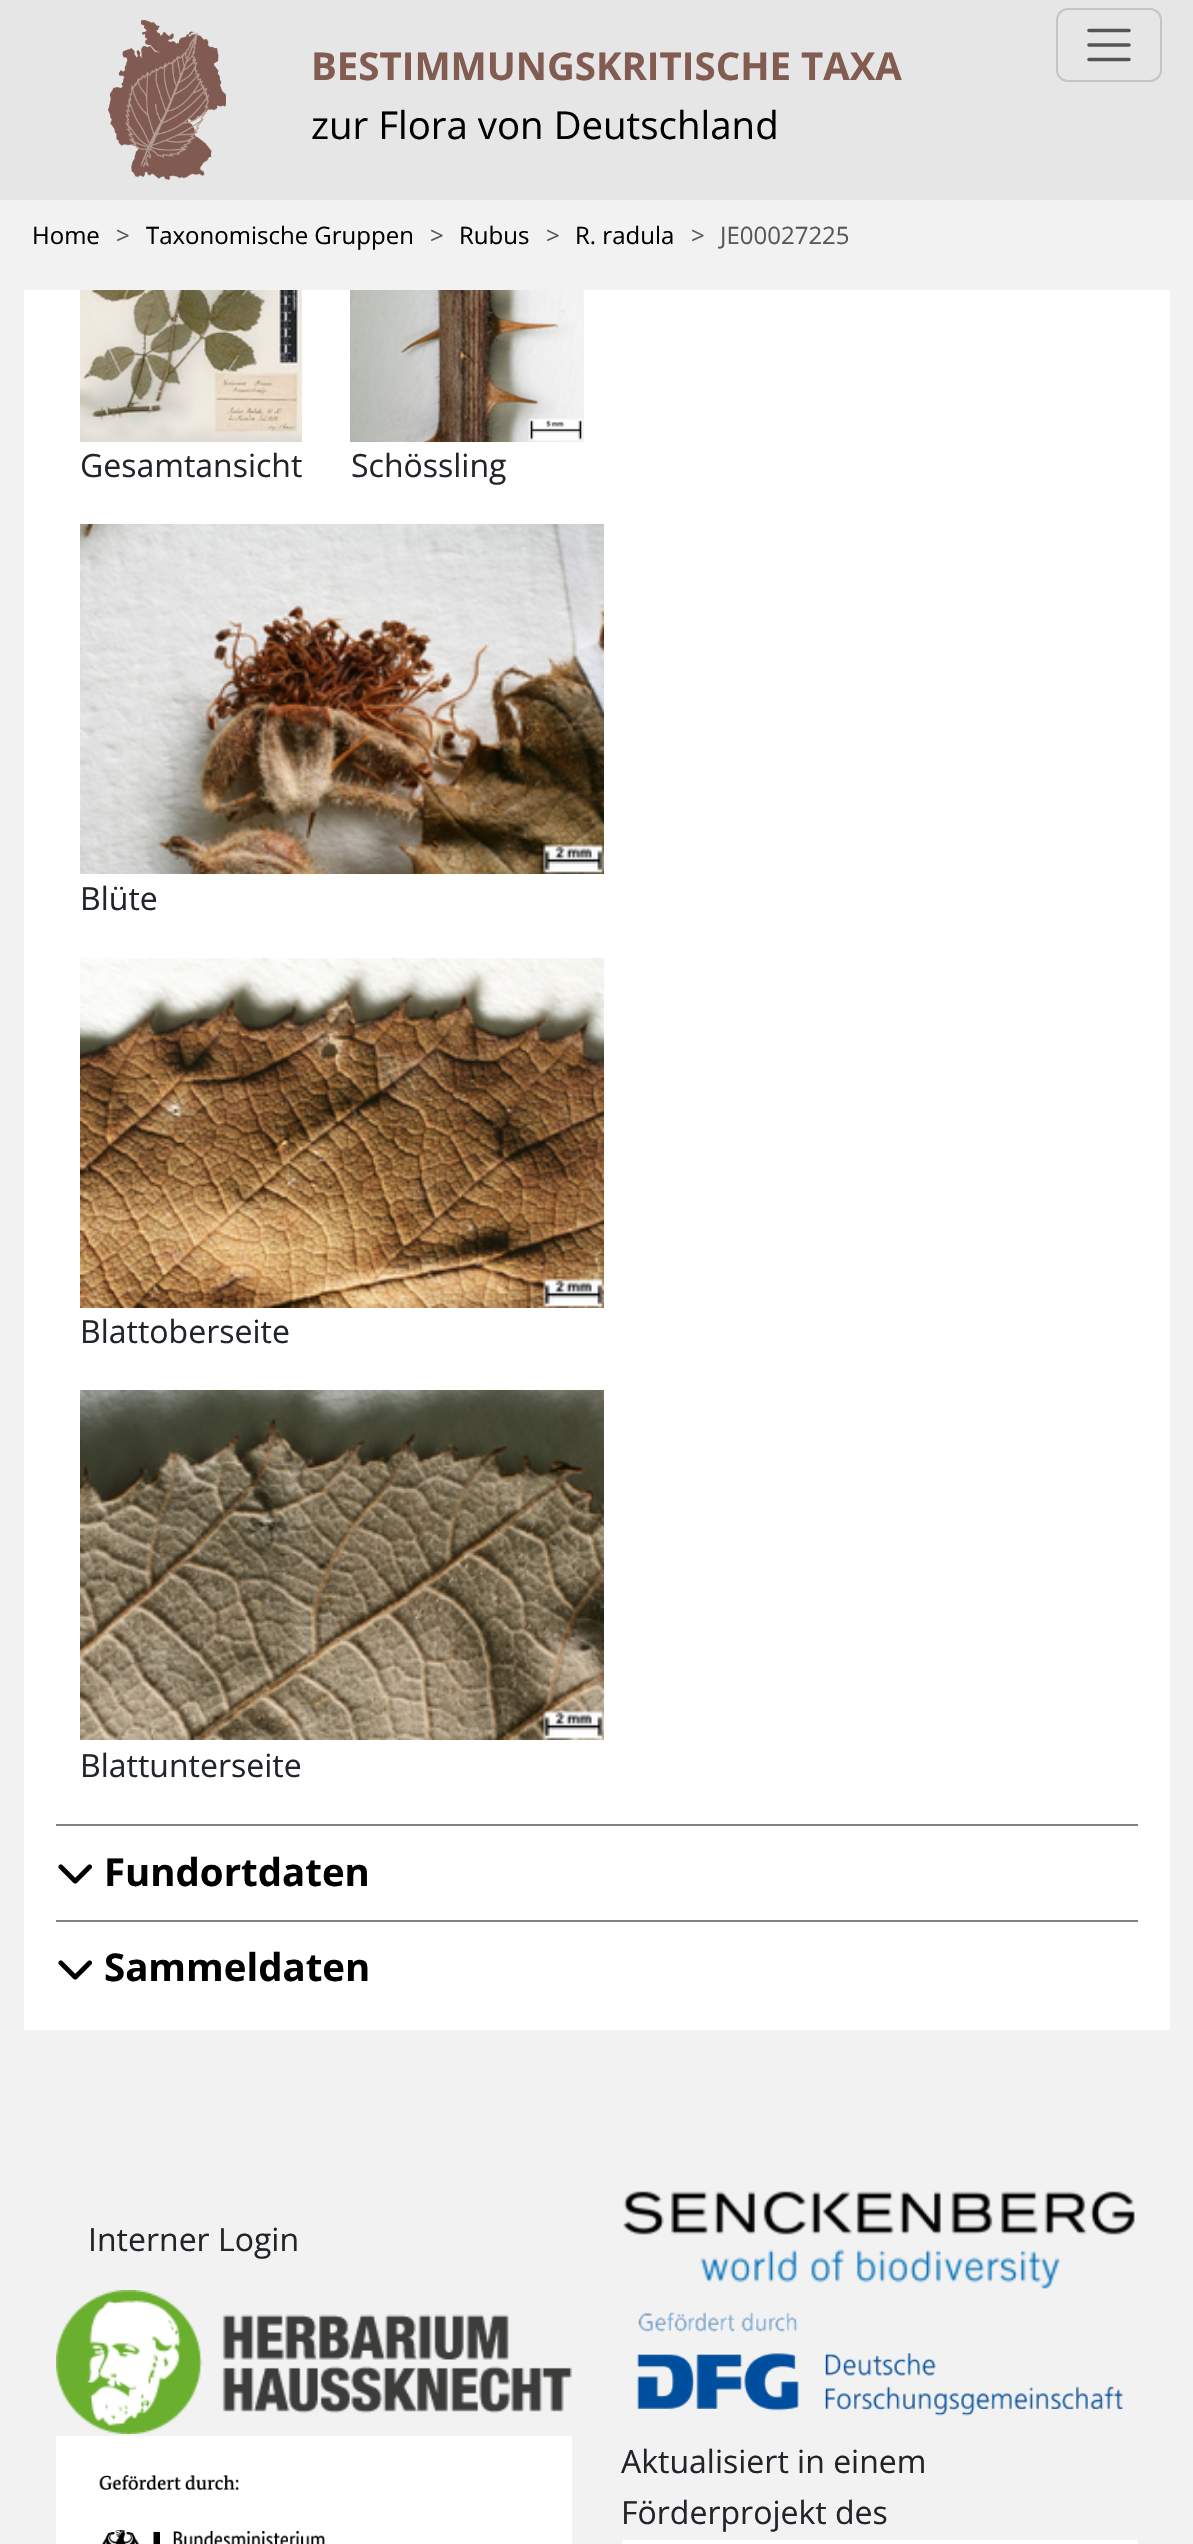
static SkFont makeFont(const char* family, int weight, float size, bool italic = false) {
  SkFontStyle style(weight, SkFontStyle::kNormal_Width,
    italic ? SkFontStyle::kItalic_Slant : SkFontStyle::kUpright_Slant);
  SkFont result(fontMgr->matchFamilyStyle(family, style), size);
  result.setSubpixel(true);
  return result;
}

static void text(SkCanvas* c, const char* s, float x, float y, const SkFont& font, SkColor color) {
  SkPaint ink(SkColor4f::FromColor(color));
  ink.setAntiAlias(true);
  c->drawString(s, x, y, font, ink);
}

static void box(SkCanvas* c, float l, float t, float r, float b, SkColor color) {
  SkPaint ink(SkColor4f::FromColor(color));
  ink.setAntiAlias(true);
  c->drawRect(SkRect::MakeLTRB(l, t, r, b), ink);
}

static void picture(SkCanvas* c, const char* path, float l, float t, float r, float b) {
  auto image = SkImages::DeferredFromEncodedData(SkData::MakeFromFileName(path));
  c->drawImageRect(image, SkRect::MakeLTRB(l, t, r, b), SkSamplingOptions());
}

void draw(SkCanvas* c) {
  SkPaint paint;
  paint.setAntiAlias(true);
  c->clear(0xfff2f2f2);
  box(c, 0, 0, 1193, 200, 0xffe6e6e6);
  picture(c, "img_01.png", 108, 20, 226, 180);
  SkFont face1 = makeFont("Open Sans", 700, 38.4f);
  text(c, "BESTIMMUNGSKRITISCHE TAXA", 311, 80, face1, 0xff825b51);
  SkFont face2 = makeFont("Open Sans", 400, 38.4f);
  text(c, "zur Flora von Deutschland", 311, 139, face2, 0xff000000);
  paint.setStyle(SkPaint::kStroke_Style);
  paint.setStrokeWidth(2);
  paint.setColor(0xffc4c4c4);
  c->drawRoundRect(SkRect::MakeLTRB(1057, 9, 1161, 81), 11, 11, paint);
  paint.setStrokeWidth(3.6f);
  paint.setStrokeCap(SkPaint::kRound_Cap);
  paint.setColor(0xff525558);
  c->drawPath(SkPathBuilder().moveTo(1089, 30.5f).lineTo(1129, 30.5f).moveTo(1089, 45).lineTo(1129, 45).moveTo(1089, 59.5f).lineTo(1129, 59.5f).detach(), paint);
  SkFont face3 = makeFont("Open Sans", 400, 24);
  text(c, "Home", 32, 244, face3, 0xff000000);
  text(c, ">", 116, 244, face3, 0xff55585b);
  text(c, "Taxonomische Gruppen", 146, 244, face3, 0xff000000);
  text(c, ">", 430, 244, face3, 0xff55585b);
  text(c, "Rubus", 459, 244, face3, 0xff000000);
  text(c, ">", 546, 244, face3, 0xff55585b);
  text(c, "R. radula", 575, 244, face3, 0xff000000);
  text(c, ">", 691, 244, face3, 0xff55585b);
  text(c, "JE00027225", 720, 244, face3, 0xff55585b);
  box(c, 24, 290, 1170, 2030, 0xffffffff);
  picture(c, "img_02.png", 80, 290, 302, 442);
  SkFont face4 = makeFont("Open Sans", 400, 32);
  text(c, "Gesamtansicht", 80, 477, face4, 0xff212529);
  picture(c, "img_03.png", 350, 290, 584, 442);
  text(c, "Schössling", 351, 477, face4, 0xff212529);
  picture(c, "img_04.png", 80, 524, 604, 874);
  text(c, "Blüte", 80, 910, face4, 0xff212529);
  picture(c, "img_05.png", 80, 958, 604, 1308);
  text(c, "Blattoberseite", 80, 1343, face4, 0xff212529);
  picture(c, "img_06.png", 80, 1390, 604, 1740);
  text(c, "Blattunterseite", 80, 1777, face4, 0xff212529);
  box(c, 56, 1824, 1138, 1826, 0xff808080);
  picture(c, "img_07.png", 58, 1864, 92, 1884);
  text(c, "Fundortdaten", 104, 1886, face1, 0xff000000);
  box(c, 56, 1920, 1138, 1922, 0xff808080);
  picture(c, "img_07.png", 58, 1960, 92, 1980);
  text(c, "Sammeldaten", 104, 1981, face1, 0xff000000);
  text(c, "Interner Login", 88, 2251, face4, 0xff212529);
  picture(c, "img_08.png", 623, 2191, 1135, 2289);
  picture(c, "img_09.png", 56, 2290, 572, 2434);
  picture(c, "img_10.png", 637, 2311, 1124, 2416);
  picture(c, "img_11.png", 56, 2436, 572, 2544);
  text(c, "Aktualisiert in einem", 621, 2473, face4, 0xff212529);
  text(c, "Förderprojekt des", 621, 2524, face4, 0xff212529);
  box(c, 622, 2540, 1138, 2544, 0xffffffff);
}
